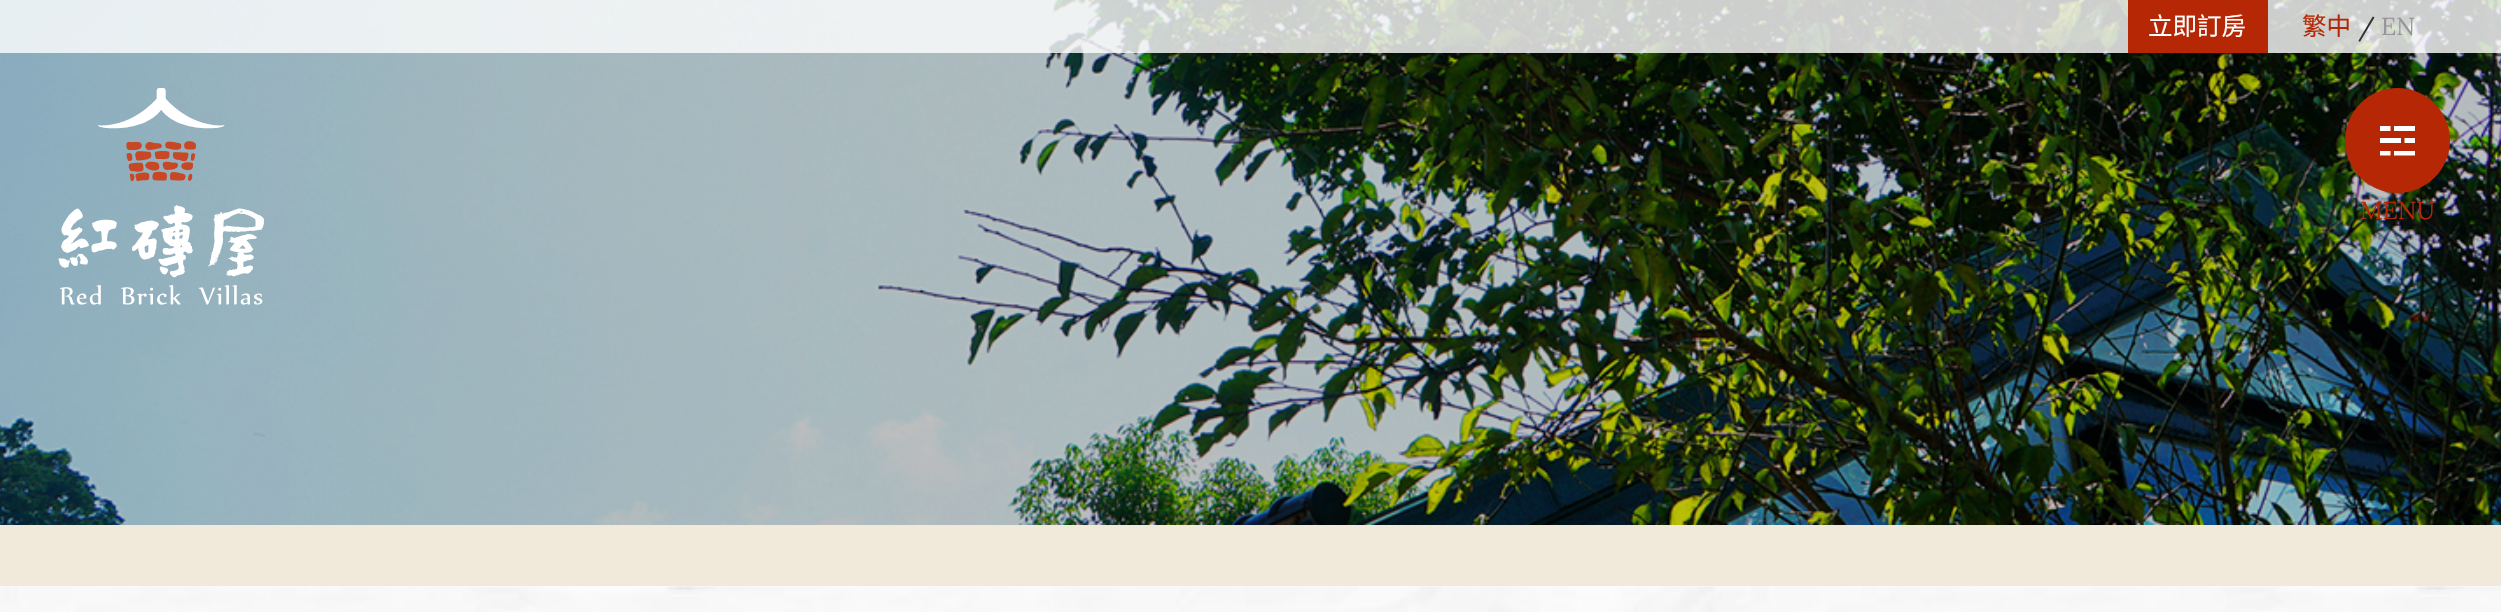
static SkFont makeFont(const char* family, int weight, float size, bool italic = false) {
  SkFontStyle style(weight, SkFontStyle::kNormal_Width,
    italic ? SkFontStyle::kItalic_Slant : SkFontStyle::kUpright_Slant);
  SkFont result(fontMgr->matchFamilyStyle(family, style), size);
  result.setSubpixel(true);
  return result;
}

static void text(SkCanvas* c, const char* s, float x, float y, const SkFont& font, SkColor color) {
  SkPaint ink(SkColor4f::FromColor(color));
  ink.setAntiAlias(true);
  c->drawString(s, x, y, font, ink);
}

static void box(SkCanvas* c, float l, float t, float r, float b, SkColor color) {
  SkPaint ink(SkColor4f::FromColor(color));
  ink.setAntiAlias(true);
  c->drawRect(SkRect::MakeLTRB(l, t, r, b), ink);
}

static void picture(SkCanvas* c, const char* path, float l, float t, float r, float b) {
  auto image = SkImages::DeferredFromEncodedData(SkData::MakeFromFileName(path));
  c->drawImageRect(image, SkRect::MakeLTRB(l, t, r, b), SkSamplingOptions());
}

void draw(SkCanvas* c) {
  SkPaint paint;
  paint.setAntiAlias(true);
  c->clear(0xffffffff);
  picture(c, "img_01.png", 0, 0, 2501, 525);
  box(c, 0, 0, 2501, 53, 0xccffffff);
  box(c, 2128, 0, 2268, 53, 0xffb62805);
  SkFont face1 = makeFont("Noto Sans TC", 400, 24.5f);
  text(c, "立即訂房", 2148, 35, face1, 0xffffffff);
  text(c, "繁中", 2302, 35, face1, 0xffb62805);
  SkFont face2 = makeFont("Lora", 400, 24.5f);
  text(c, "/", 2358, 35, face2, 0xff323232);
  text(c, "EN", 2381, 35, face2, 0xff969696);
  picture(c, "img_02.png", 58, 88, 264, 305);
  paint.setColor(0xffb62805);
  c->drawCircle(2397.5f, 140.5f, 52.5f, paint);
  paint.setColor(0xffffffff);
  c->drawPath(SkPathBuilder(SkPathFillType::kEvenOdd).moveTo(2394, 126).lineTo(2415, 126).lineTo(2415, 131).lineTo(2394, 131).close().moveTo(2380, 126).lineTo(2390.5f, 126).lineTo(2390.5f, 131).lineTo(2380, 131).close().moveTo(2380, 138).lineTo(2401, 138).lineTo(2401, 143).lineTo(2380, 143).close().moveTo(2404.5f, 138).lineTo(2415, 138).lineTo(2415, 143).lineTo(2404.5f, 143).close().detach(), paint);
  c->save();
  c->clipRect(SkRect::MakeLTRB(2380, 151, 2415, 156));
  c->drawPath(SkPathBuilder(SkPathFillType::kEvenOdd).moveTo(2394, 150.5f).lineTo(2415, 150.5f).lineTo(2415, 155.5f).lineTo(2394, 155.5f).close().moveTo(2380, 150.5f).lineTo(2390.5f, 150.5f).lineTo(2390.5f, 155.5f).lineTo(2380, 155.5f).close().detach(), paint);
  c->restore();
  text(c, "MENU", 2360, 219, face2, 0xffb62805);
  box(c, 0, 525, 2501, 586, 0xfff1eadb);
  picture(c, "img_03.png", 0, 586, 2501, 612);
}
